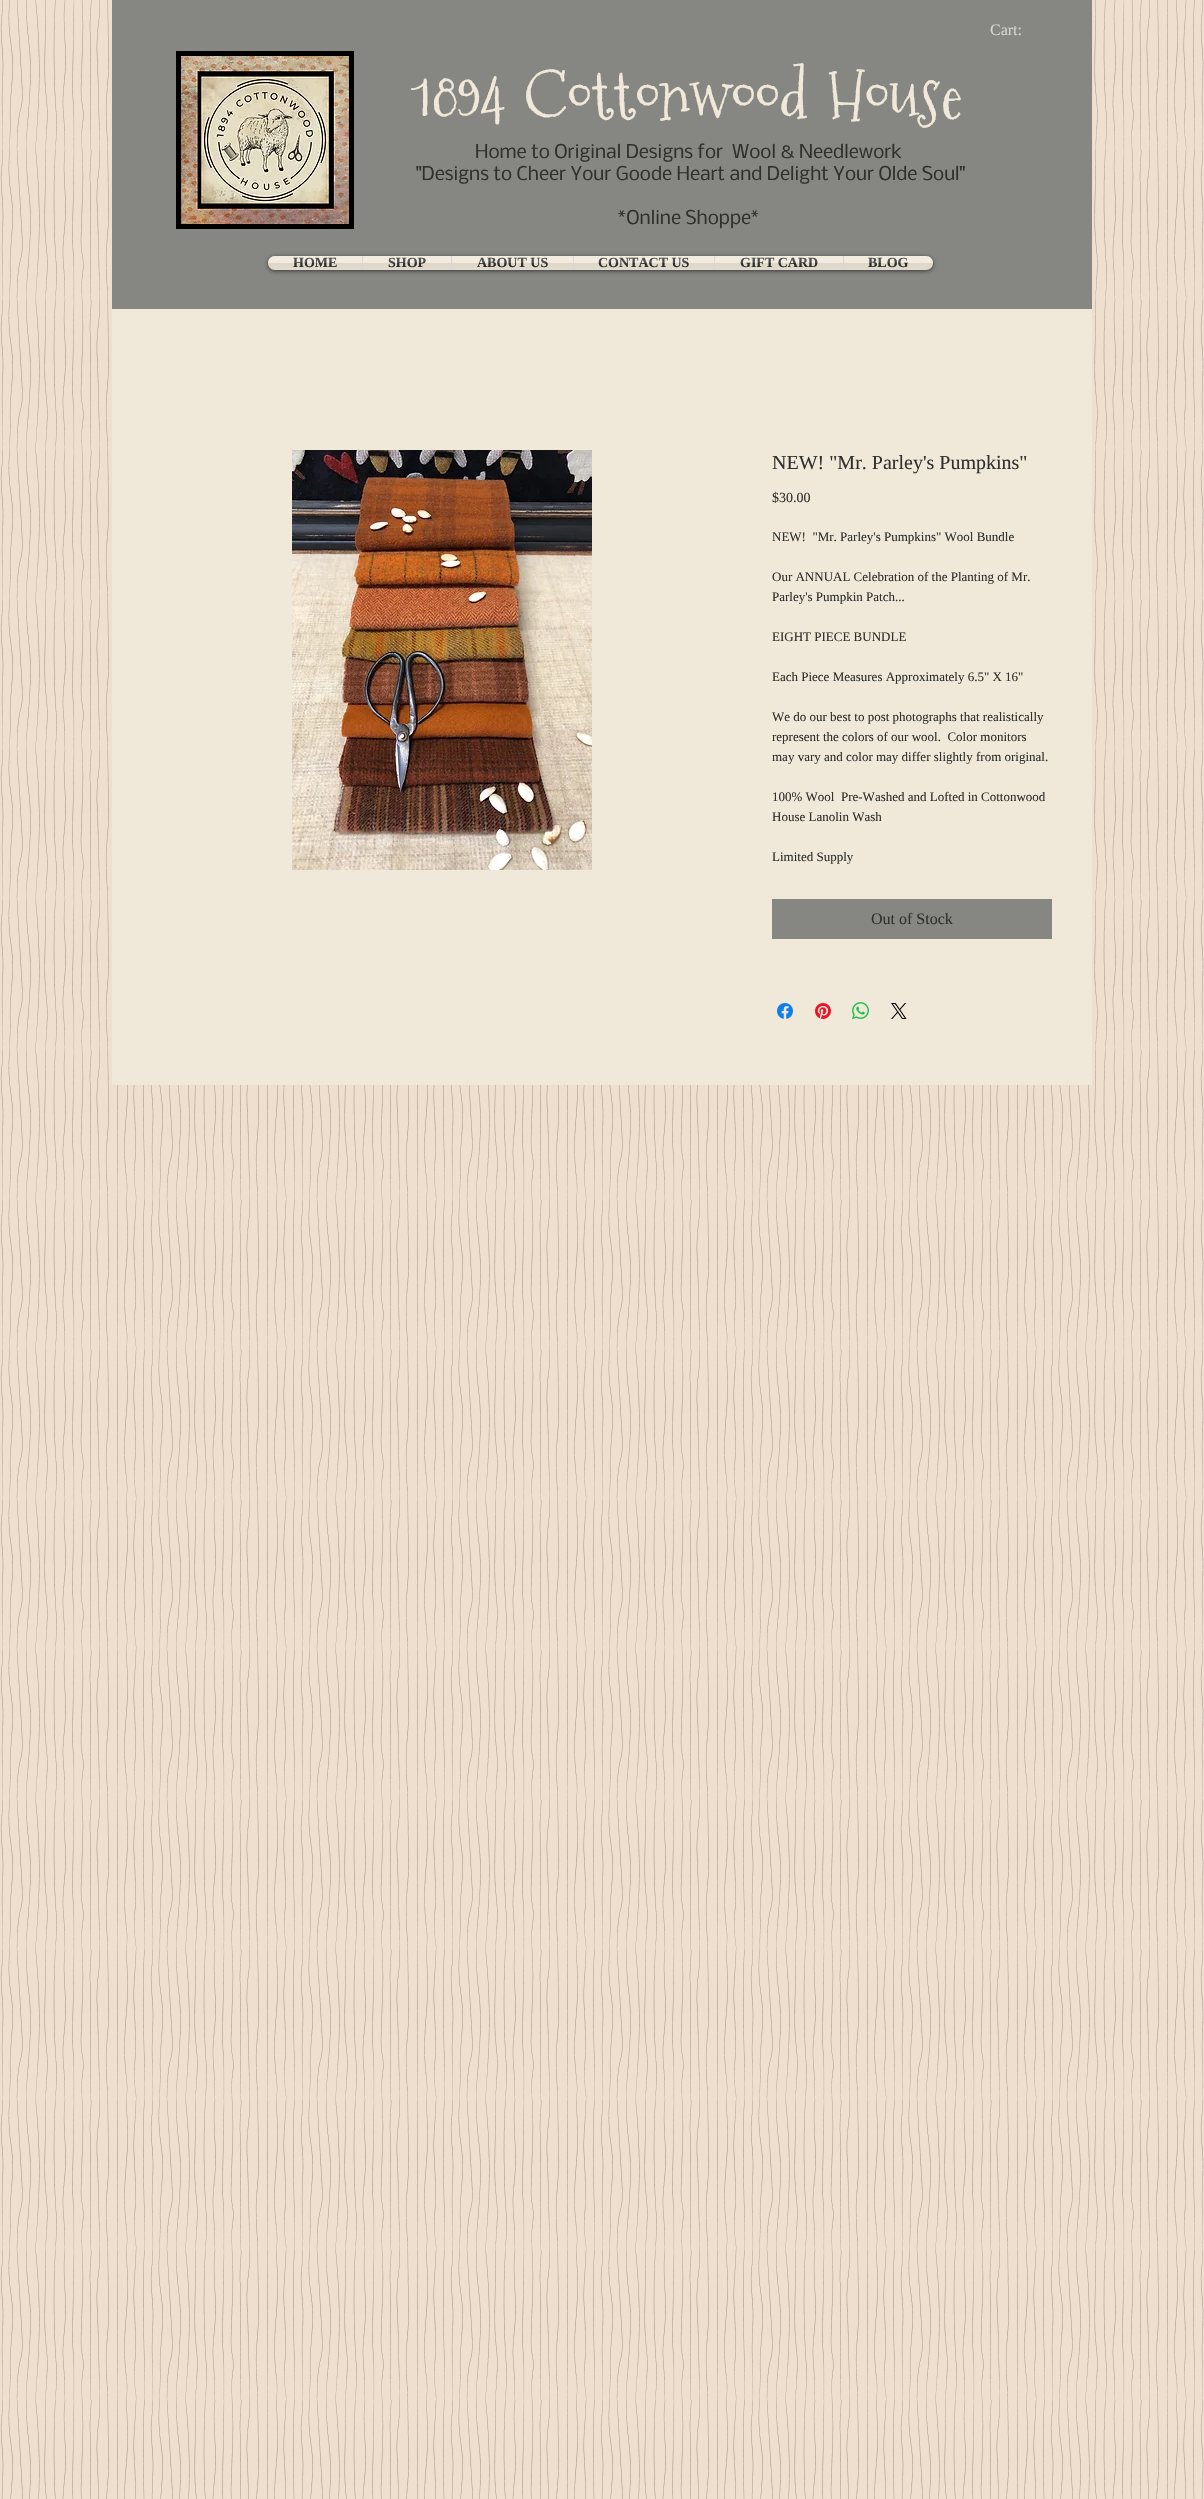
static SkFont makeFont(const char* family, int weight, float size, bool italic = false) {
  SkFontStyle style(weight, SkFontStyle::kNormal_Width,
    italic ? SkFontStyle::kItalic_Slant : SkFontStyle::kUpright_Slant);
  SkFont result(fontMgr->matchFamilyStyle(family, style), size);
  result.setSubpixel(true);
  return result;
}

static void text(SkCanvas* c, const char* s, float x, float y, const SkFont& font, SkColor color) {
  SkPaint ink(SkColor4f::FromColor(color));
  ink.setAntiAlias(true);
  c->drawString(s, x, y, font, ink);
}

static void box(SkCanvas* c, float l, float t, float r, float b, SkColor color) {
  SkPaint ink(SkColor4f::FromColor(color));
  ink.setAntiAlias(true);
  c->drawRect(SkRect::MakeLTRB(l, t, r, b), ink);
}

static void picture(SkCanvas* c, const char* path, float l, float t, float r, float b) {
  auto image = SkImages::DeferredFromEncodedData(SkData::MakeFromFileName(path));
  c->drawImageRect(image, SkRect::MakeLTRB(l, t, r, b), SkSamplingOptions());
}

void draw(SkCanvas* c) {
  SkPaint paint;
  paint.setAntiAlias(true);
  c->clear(0xffefdfcf);
  picture(c, "img_01.png", 0, 0, 1204, 2499);
  box(c, 112, 0, 1092, 309, 0xff868783);
  SkFont face1 = makeFont("Liberation Serif", 400, 16);
  text(c, "Cart:", 990, 35, face1, 0xffd6d7d4);
  box(c, 176, 51, 354, 229, 0xff000000);
  picture(c, "img_02.png", 181, 56, 349, 224);
  SkFont face2 = makeFont("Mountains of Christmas", 400, 66);
  text(c, "1894 Cottonwood House", 413, 119, face2, 0xfff0e9da);
  SkFont face3 = makeFont("Nobile", 400, 18);
  text(c, "Home to Original Designs for", 475, 158, face3, 0xff2f302d);
  text(c, "Wool & Needlework", 732, 158, face3, 0xff2f302d);
  text(c, "\"Designs to Cheer Your Goode Heart and Delight Your Olde Soul\"", 416, 180, face3, 0xff2f302d);
  text(c, "*Online Shoppe*", 618, 224, face3, 0xff2f302d);
  paint.setColor(0x99000000);
  paint.setMaskFilter(SkMaskFilter::MakeBlur(kNormal_SkBlurStyle, 2));
  c->drawRoundRect(SkRect::MakeLTRB(268, 257, 933, 271), 7, 7, paint);
  paint.setMaskFilter(nullptr);
  picture(c, "img_03.png", 268, 256, 933, 270);
  paint.setColor(0xfff0e9da);
  c->drawPath(SkPathBuilder().moveTo(275, 256).lineTo(362, 256).lineTo(362, 270).lineTo(275, 270).cubicTo(271, 270, 268, 267, 268, 263).cubicTo(268, 259, 271, 256, 275, 256).close().detach(), paint);
  SkFont face4 = makeFont("Liberation Serif", 700, 14);
  text(c, "HOME", 293, 267, face4, 0xff2f302d);
  picture(c, "img_04.png", 268, 256, 362, 270);
  box(c, 363, 256, 451, 270, 0xfff0e9da);
  box(c, 362, 256, 363, 270, 0xffd6d7d4);
  text(c, "SHOP", 388, 267, face4, 0xff2f302d);
  picture(c, "img_05.png", 363, 256, 451, 270);
  box(c, 452, 256, 573, 270, 0xfff0e9da);
  box(c, 451, 256, 452, 270, 0xffd6d7d4);
  text(c, "ABOUT US", 477, 267, face4, 0xff2f302d);
  picture(c, "img_06.png", 452, 256, 573, 270);
  box(c, 574, 256, 714, 270, 0xfff0e9da);
  box(c, 573, 256, 574, 270, 0xffd6d7d4);
  text(c, "CONTACT US", 598, 267, face4, 0xff2f302d);
  picture(c, "img_07.png", 574, 256, 714, 270);
  box(c, 715, 256, 843, 270, 0xfff0e9da);
  box(c, 714, 256, 715, 270, 0xffd6d7d4);
  text(c, "GIFT CARD", 740, 267, face4, 0xff2f302d);
  picture(c, "img_08.png", 715, 256, 843, 270);
  c->drawPath(SkPathBuilder().moveTo(843, 256).lineTo(926, 256).cubicTo(930, 256, 933, 259, 933, 263).cubicTo(933, 267, 930, 270, 926, 270).lineTo(843, 270).close().detach(), paint);
  box(c, 843, 256, 844, 270, 0xffd6d7d4);
  text(c, "BLOG", 868, 267, face4, 0xff2f302d);
  picture(c, "img_09.png", 844, 256, 933, 270);
  box(c, 112, 309, 1092, 1085, 0xfff0e9da);
  picture(c, "img_10.png", 292, 450, 592, 870);
  SkFont face5 = makeFont("Liberation Serif", 400, 20);
  text(c, "NEW! \"Mr. Parley's Pumpkins\"", 772, 469, face5, 0xff2f302d);
  SkFont face6 = makeFont("Liberation Serif", 400, 14);
  text(c, "$30.00", 772, 502, face6, 0xff2f302d);
  SkFont face7 = makeFont("Liberation Serif", 400, 13);
  text(c, "NEW!  \"Mr. Parley's Pumpkins\" Wool Bundle", 772, 541, face7, 0xff2f302d);
  text(c, "Our ANNUAL Celebration of the Planting of Mr.", 772, 581, face7, 0xff2f302d);
  text(c, "Parley's Pumpkin Patch...", 772, 601, face7, 0xff2f302d);
  text(c, "EIGHT PIECE BUNDLE", 772, 641, face7, 0xff2f302d);
  text(c, "Each Piece Measures Approximately 6.5\" X 16\"", 772, 681, face7, 0xff2f302d);
  text(c, "We do our best to post photographs that realistically", 772, 721, face7, 0xff2f302d);
  text(c, "represent the colors of our wool.  Color monitors", 772, 741, face7, 0xff2f302d);
  text(c, "may vary and color may differ slightly from original.", 772, 761, face7, 0xff2f302d);
  text(c, "100% Wool  Pre-Washed and Lofted in Cottonwood", 772, 801, face7, 0xff2f302d);
  text(c, "House Lanolin Wash", 772, 821, face7, 0xff2f302d);
  text(c, "Limited Supply", 772, 861, face7, 0xff2f302d);
  box(c, 772, 899, 1052, 939, 0xff868783);
  text(c, "Out of Stock", 871, 924, face1, 0xff2f302d);
  picture(c, "img_11.png", 777, 1003, 793, 1019);
  picture(c, "img_12.png", 815, 1003, 831, 1019);
  picture(c, "img_13.png", 852, 1002, 869, 1019);
  picture(c, "img_14.png", 891, 1003, 907, 1019);
}
